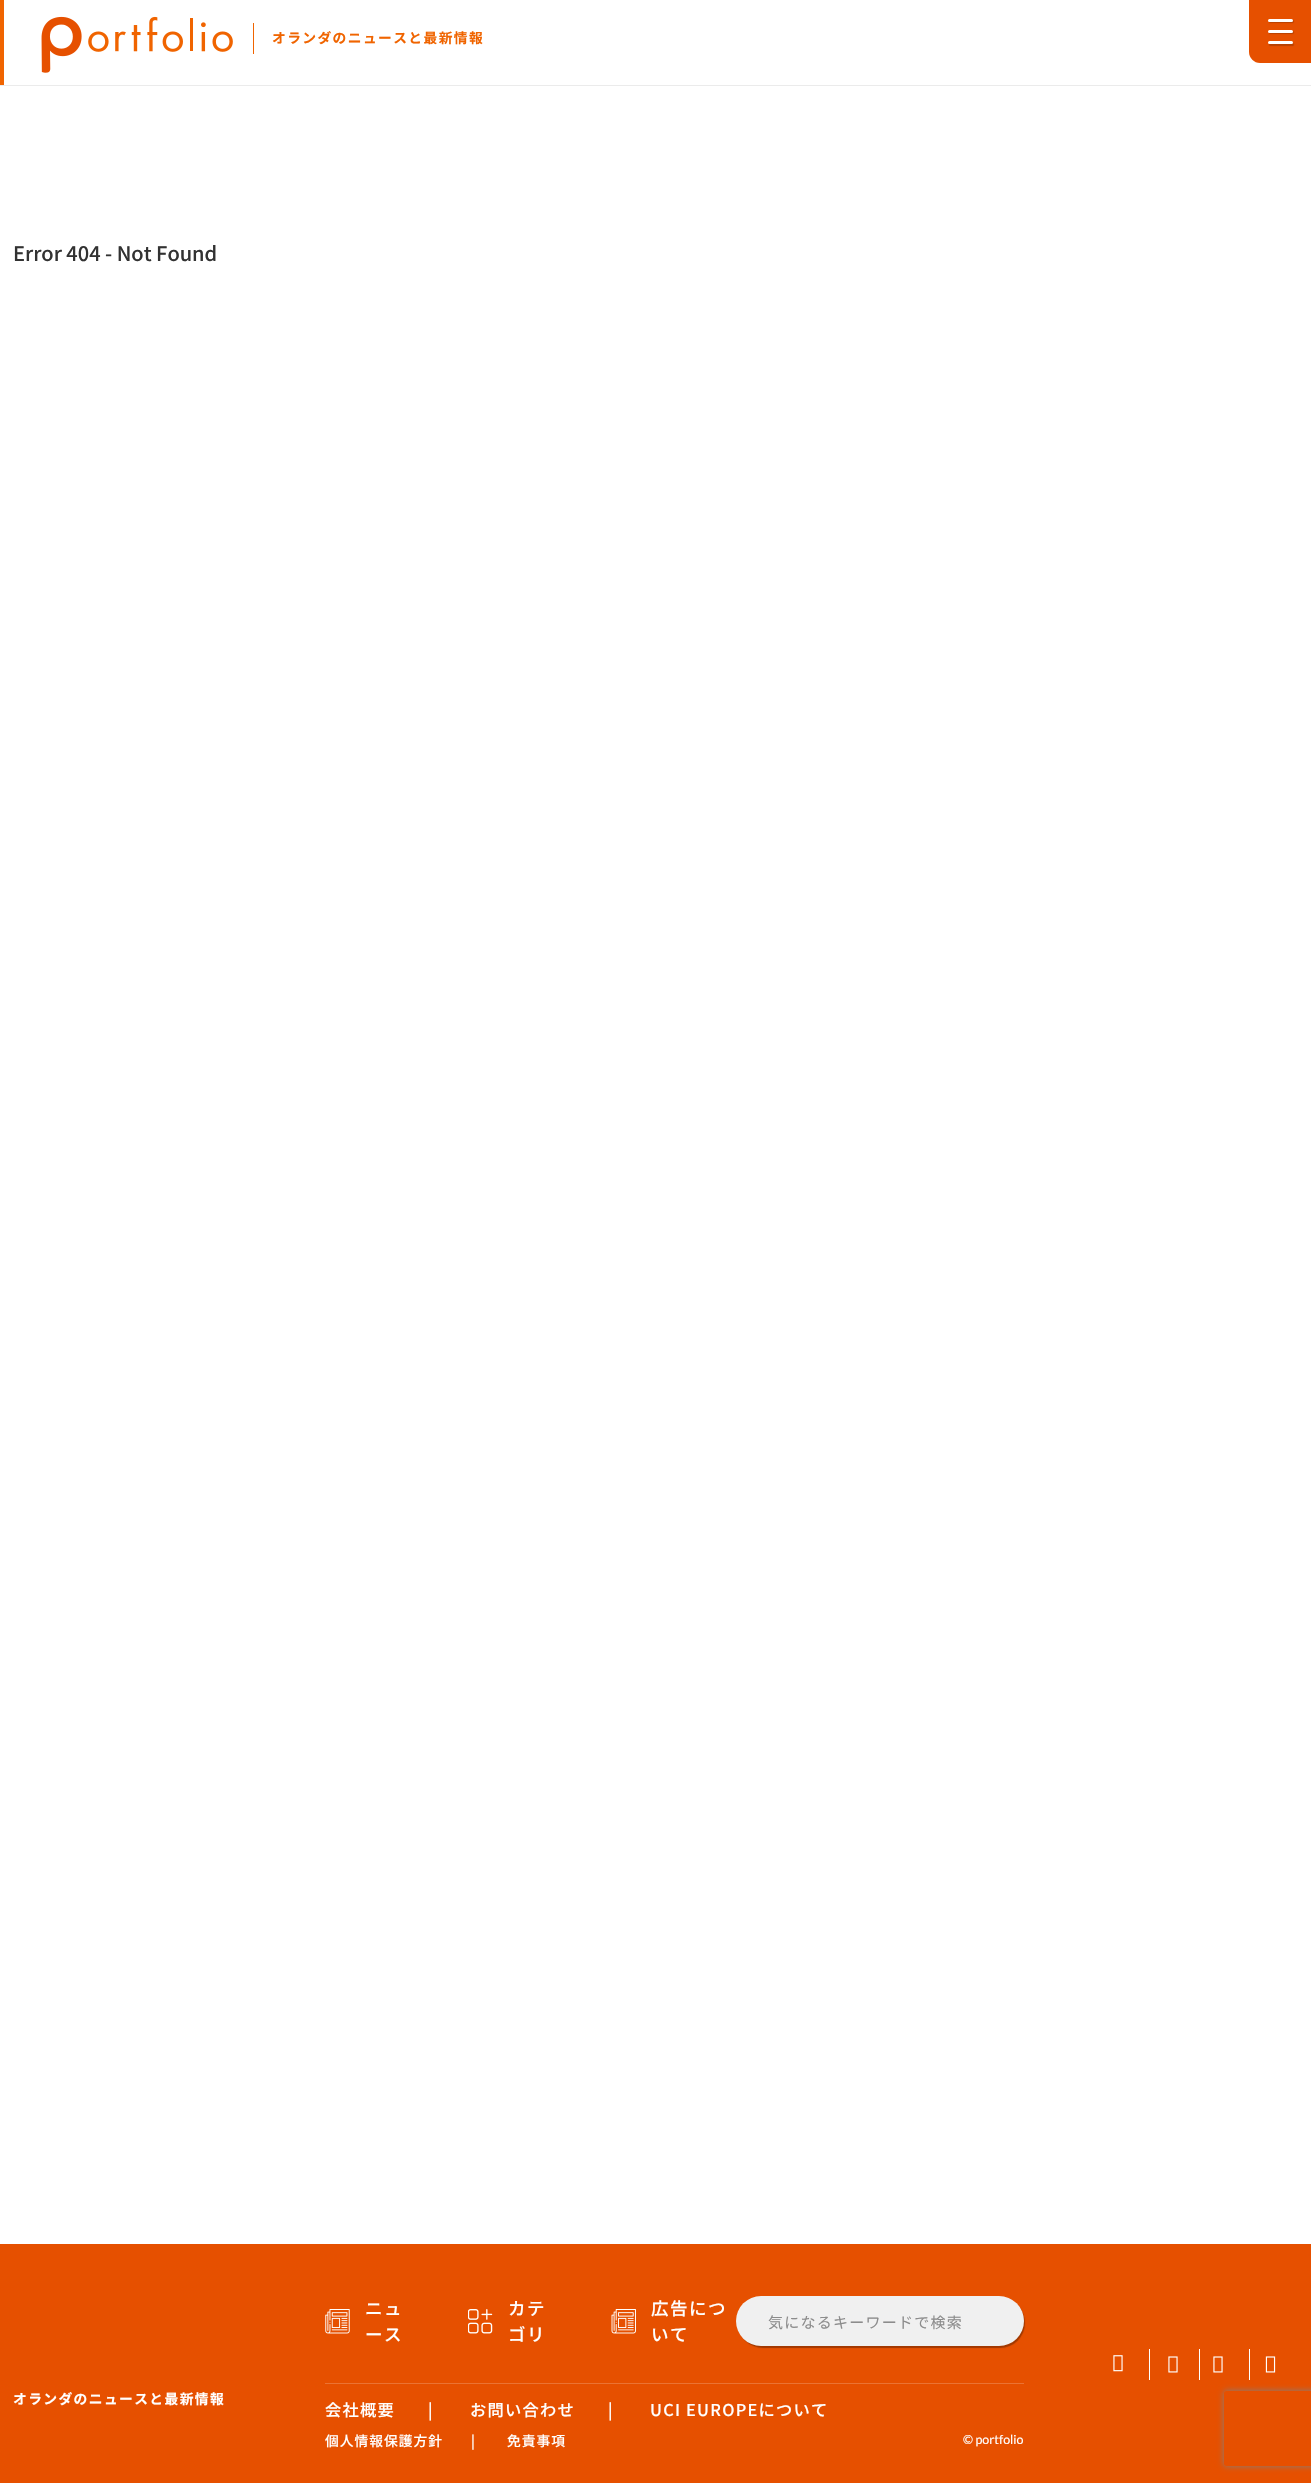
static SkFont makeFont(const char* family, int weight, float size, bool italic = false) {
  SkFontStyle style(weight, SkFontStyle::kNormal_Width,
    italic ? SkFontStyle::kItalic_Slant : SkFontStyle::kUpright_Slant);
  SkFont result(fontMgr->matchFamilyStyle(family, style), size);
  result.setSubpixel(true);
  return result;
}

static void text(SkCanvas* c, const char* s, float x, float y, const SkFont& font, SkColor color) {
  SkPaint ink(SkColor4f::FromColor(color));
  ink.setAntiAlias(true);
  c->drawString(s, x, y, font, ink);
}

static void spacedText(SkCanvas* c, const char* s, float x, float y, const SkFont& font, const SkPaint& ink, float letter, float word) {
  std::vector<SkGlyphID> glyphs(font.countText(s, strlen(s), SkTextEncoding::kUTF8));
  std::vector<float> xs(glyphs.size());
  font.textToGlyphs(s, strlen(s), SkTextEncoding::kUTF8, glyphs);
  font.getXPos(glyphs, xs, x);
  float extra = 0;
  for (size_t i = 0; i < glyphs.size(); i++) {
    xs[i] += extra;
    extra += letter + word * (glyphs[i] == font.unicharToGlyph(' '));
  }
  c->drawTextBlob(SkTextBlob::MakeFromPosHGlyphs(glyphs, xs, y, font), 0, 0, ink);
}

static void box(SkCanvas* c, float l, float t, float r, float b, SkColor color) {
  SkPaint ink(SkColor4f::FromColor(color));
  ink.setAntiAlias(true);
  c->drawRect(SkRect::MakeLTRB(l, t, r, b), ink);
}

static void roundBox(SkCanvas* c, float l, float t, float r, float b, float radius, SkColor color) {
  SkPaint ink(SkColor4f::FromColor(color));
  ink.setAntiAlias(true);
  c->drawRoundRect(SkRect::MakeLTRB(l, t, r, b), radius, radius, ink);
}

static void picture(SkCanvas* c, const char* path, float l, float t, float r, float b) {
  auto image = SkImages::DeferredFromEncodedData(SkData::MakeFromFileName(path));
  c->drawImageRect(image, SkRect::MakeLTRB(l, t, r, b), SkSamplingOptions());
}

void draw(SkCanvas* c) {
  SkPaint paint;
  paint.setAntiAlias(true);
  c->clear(0xffffffff);
  c->save();
  c->clipRect(SkRect::MakeLTRB(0, 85, 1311, 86));
  paint.setColor(0x14000000);
  paint.setMaskFilter(SkMaskFilter::MakeBlur(kNormal_SkBlurStyle, 0.5f));
  c->drawRect(SkRect::MakeLTRB(0, 1, 1311, 86), paint);
  paint.setMaskFilter(nullptr);
  c->restore();
  box(c, 0, 0, 4, 85, 0xfff06400);
  picture(c, "img_01.png", 41, 16, 233, 73);
  box(c, 253, 23, 254, 54, 0xfff06400);
  SkFont face1 = makeFont("Noto Sans JP", 700, 13.75f);
  paint.setColor(0xfff06400);
  spacedText(c, "オランダのニュースと最新情報", 272, 43, face1, paint, 1.4f, 0);
  paint.setColor(0xffe65000);
  c->drawPath(SkPathBuilder().moveTo(1249, 0).lineTo(1311, 0).lineTo(1311, 63).lineTo(1260, 63).cubicTo(1254, 63, 1249, 58, 1249, 52).close().detach(), paint);
  paint.setColor(0x33000000);
  paint.setMaskFilter(SkMaskFilter::MakeBlur(kNormal_SkBlurStyle, 0.5f));
  c->drawRoundRect(SkRect::MakeLTRB(1269, 20, 1294, 23), 1.5f, 1.5f, paint);
  paint.setMaskFilter(nullptr);
  roundBox(c, 1268, 19, 1293, 22, 1.5f, 0xffffffff);
  paint.setMaskFilter(SkMaskFilter::MakeBlur(kNormal_SkBlurStyle, 0.5f));
  c->drawRoundRect(SkRect::MakeLTRB(1269, 31, 1294, 34), 1.5f, 1.5f, paint);
  paint.setMaskFilter(nullptr);
  roundBox(c, 1268, 30, 1293, 33, 1.5f, 0xffffffff);
  paint.setMaskFilter(SkMaskFilter::MakeBlur(kNormal_SkBlurStyle, 0.5f));
  c->drawRoundRect(SkRect::MakeLTRB(1269, 43, 1294, 46), 1.5f, 1.5f, paint);
  paint.setMaskFilter(nullptr);
  roundBox(c, 1268, 41, 1293, 44, 1.5f, 0xffffffff);
  SkFont face2 = makeFont("Noto Sans JP", 500, 20);
  text(c, "Error 404 - Not Found", 13, 261, face2, 0xff323232);
  box(c, 0, 2244, 1311, 2483, 0xffe65000);
  paint.setColor(0xffffffff);
  spacedText(c, "オランダのニュースと最新情報", 13, 2404, face1, paint, 1.4f, 0);
  picture(c, "img_02.png", 325, 2309, 350, 2334);
  SkFont face3 = makeFont("Noto Sans JP", 500, 17.5f);
  spacedText(c, "ニュ", 365, 2315, face3, paint, 1.5f, 0);
  spacedText(c, "ース", 365, 2341, face3, paint, 1.5f, 0);
  picture(c, "img_03.png", 468, 2309, 493, 2334);
  spacedText(c, "カテ", 508, 2315, face3, paint, 1.5f, 0);
  spacedText(c, "ゴリ", 508, 2341, face3, paint, 1.5f, 0);
  picture(c, "img_04.png", 611, 2309, 636, 2334);
  spacedText(c, "広告につ", 651, 2315, face3, paint, 1.5f, 0);
  spacedText(c, "いて", 651, 2341, face3, paint, 1.5f, 0);
  paint.setColor(0x4d000000);
  paint.setMaskFilter(SkMaskFilter::MakeBlur(kNormal_SkBlurStyle, 0.5f));
  c->drawRoundRect(SkRect::MakeLTRB(738, 2298, 1025, 2348), 25, 25, paint);
  paint.setMaskFilter(nullptr);
  roundBox(c, 736, 2296, 1024, 2346, 25, 0xfff0f0f0);
  SkFont face4 = makeFont("Noto Sans JP", 400, 15);
  paint.setColor(0xff8c8c8c);
  spacedText(c, "気になるキーワードで検索", 768, 2328, face4, paint, 1.25f, 0);
  picture(c, "img_05.png", 1113, 2355, 1123, 2372);
  box(c, 1149, 2349, 1150, 2380, 0xffffffff);
  picture(c, "img_06.png", 1168, 2356, 1178, 2373);
  box(c, 1199, 2349, 1200, 2380, 0xffffffff);
  picture(c, "img_06.png", 1213, 2356, 1223, 2373);
  box(c, 1249, 2349, 1250, 2380, 0xffffffff);
  picture(c, "img_07.png", 1265, 2356, 1276, 2373);
  box(c, 325, 2383, 1024, 2384, 0xffeb7333);
  SkFont face5 = makeFont("Noto Sans JP", 500, 16.25f);
  paint.setColor(0xffffffff);
  spacedText(c, "会社概要", 325, 2416, face5, paint, 1.25f, 0);
  text(c, "|", 428, 2416, face5, 0xffffffff);
  spacedText(c, "お問い合わせ", 470, 2416, face5, paint, 1.25f, 0);
  text(c, "|", 608, 2416, face5, 0xffffffff);
  spacedText(c, "UCI EUROPEについて", 650, 2416, face5, paint, 1.25f, 0);
  SkFont face6 = makeFont("Noto Sans JP", 500, 13.75f);
  spacedText(c, "個人情報保護方針", 325, 2446, face6, paint, 1, 0);
  text(c, "|", 471, 2446, face6, 0xffffffff);
  spacedText(c, "免責事項", 507, 2446, face6, paint, 1, 0);
  SkFont face7 = makeFont("Lato", 400, 12.5f);
  text(c, "© portfolio", 963, 2444, face7, 0xffffffff);
  c->save();
  c->clipPath(SkPathBuilder(SkPathFillType::kEvenOdd).moveTo(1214, 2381).lineTo(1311, 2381).lineTo(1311, 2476).lineTo(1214, 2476).close().moveTo(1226.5f, 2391).lineTo(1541.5f, 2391).cubicTo(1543, 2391, 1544, 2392, 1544, 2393.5f).lineTo(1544, 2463.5f).cubicTo(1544, 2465, 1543, 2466, 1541.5f, 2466).lineTo(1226.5f, 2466).cubicTo(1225, 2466, 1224, 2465, 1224, 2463.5f).lineTo(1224, 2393.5f).cubicTo(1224, 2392, 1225, 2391, 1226.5f, 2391).close().detach(), true);
  paint.setColor(0xff808080);
  paint.setMaskFilter(SkMaskFilter::MakeBlur(kNormal_SkBlurStyle, 3));
  c->drawRoundRect(SkRect::MakeLTRB(1224, 2391, 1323, 2466), 2.5f, 2.5f, paint);
  paint.setMaskFilter(nullptr);
  c->restore();
}
